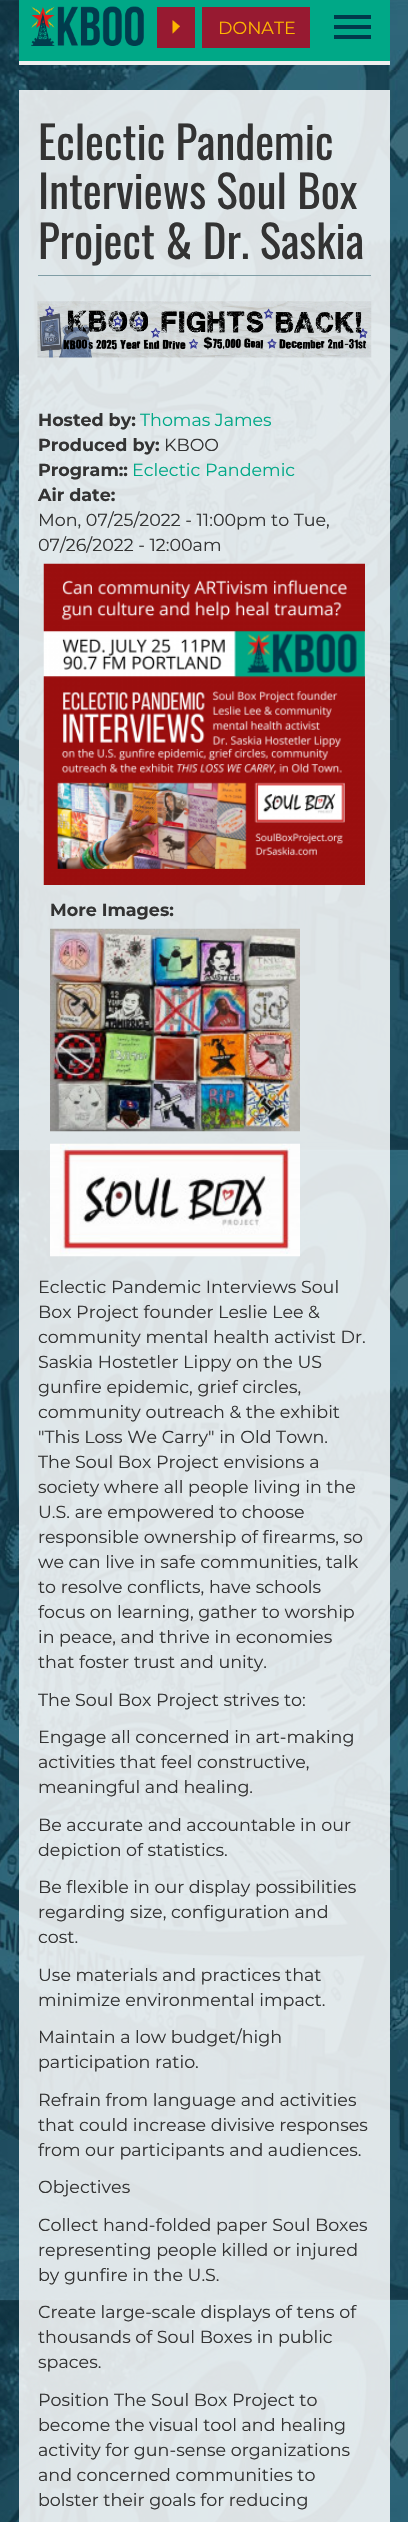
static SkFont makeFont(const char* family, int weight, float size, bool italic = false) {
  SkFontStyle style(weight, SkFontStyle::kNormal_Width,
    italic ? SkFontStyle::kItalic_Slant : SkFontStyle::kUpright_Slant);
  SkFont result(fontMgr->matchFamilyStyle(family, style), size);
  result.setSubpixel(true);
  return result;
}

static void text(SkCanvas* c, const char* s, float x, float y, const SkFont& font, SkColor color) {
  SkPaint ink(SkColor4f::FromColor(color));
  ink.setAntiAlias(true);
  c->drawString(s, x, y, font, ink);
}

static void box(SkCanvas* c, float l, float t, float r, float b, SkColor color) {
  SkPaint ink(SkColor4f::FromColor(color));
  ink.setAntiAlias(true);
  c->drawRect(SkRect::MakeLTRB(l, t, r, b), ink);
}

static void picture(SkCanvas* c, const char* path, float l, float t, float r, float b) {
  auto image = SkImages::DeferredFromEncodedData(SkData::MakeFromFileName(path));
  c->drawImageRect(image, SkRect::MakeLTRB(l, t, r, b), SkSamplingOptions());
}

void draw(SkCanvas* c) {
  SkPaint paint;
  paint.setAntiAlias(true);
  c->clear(0xffffffff);
  picture(c, "img_01.png", 0, 0, 408, 2522);
  box(c, 19, 0, 390, 61, 0xff00a887);
  box(c, 19, 61, 390, 65, 0xffeeeeee);
  picture(c, "img_02.png", 31, 6, 144, 46);
  box(c, 157, 7, 195, 48, 0xff971a31);
  picture(c, "img_03.png", 172, 20, 180, 34);
  box(c, 202, 7, 310, 48, 0xff971a31);
  SkFont face1 = makeFont("Montserrat", 400, 17.5f);
  text(c, "DONATE", 218, 34, face1, 0xffffb600);
  box(c, 334, 15, 371, 19, 0xff003b4c);
  box(c, 334, 25, 371, 29, 0xff003b4c);
  box(c, 334, 35, 371, 39, 0xff003b4c);
  box(c, 19, 90, 390, 2522, 0xd9ffffff);
  box(c, 38, 275, 371, 276, 0xff7f9da5);
  SkFont face2 = makeFont("Oswald", 400, 45);
  text(c, "Eclectic Pandemic", 38, 160, face2, 0xff333333);
  text(c, "Interviews Soul Box", 38, 209, face2, 0xff333333);
  text(c, "Project & Dr. Saskia", 38, 259, face2, 0xff333333);
  picture(c, "img_04.png", 37, 301, 372, 358);
  SkFont face3 = makeFont("Montserrat", 700, 17.5f);
  text(c, "Hosted by:", 38, 426, face3, 0xff333333);
  text(c, "Thomas James", 140, 426, face1, 0xff00a887);
  text(c, "Produced by:", 38, 451, face3, 0xff333333);
  text(c, "KBOO", 164, 451, face1, 0xff333333);
  text(c, "Program::", 38, 476, face3, 0xff333333);
  text(c, "Eclectic Pandemic", 132, 476, face1, 0xff00a887);
  text(c, "Air date:", 38, 501, face3, 0xff333333);
  text(c, "Mon, 07/25/2022 - 11:00pm to Tue,", 38, 526, face1, 0xff333333);
  text(c, "07/26/2022 - 12:00am", 38, 551, face1, 0xff333333);
  picture(c, "img_05.png", 43, 563, 365, 885);
  text(c, "More Images:", 50, 916, face3, 0xff333333);
  picture(c, "img_06.png", 50, 928, 300, 1132);
  picture(c, "img_07.png", 50, 1143, 300, 1257);
  text(c, "Eclectic Pandemic Interviews Soul", 38, 1293, face1, 0xff333333);
  text(c, "Box Project founder Leslie Lee &", 38, 1318, face1, 0xff333333);
  text(c, "community mental health activist Dr.", 38, 1343, face1, 0xff333333);
  text(c, "Saskia Hostetler Lippy on the US", 38, 1368, face1, 0xff333333);
  text(c, "gunfire epidemic, grief circles,", 38, 1393, face1, 0xff333333);
  text(c, "community outreach & the exhibit", 38, 1418, face1, 0xff333333);
  text(c, "\"This Loss We Carry\" in Old Town.", 38, 1443, face1, 0xff333333);
  text(c, "The Soul Box Project envisions a", 38, 1468, face1, 0xff333333);
  text(c, "society where all people living in the", 38, 1493, face1, 0xff333333);
  text(c, "U.S. are empowered to choose", 38, 1518, face1, 0xff333333);
  text(c, "responsible ownership of firearms, so", 38, 1543, face1, 0xff333333);
  text(c, "we can live in safe communities, talk", 38, 1568, face1, 0xff333333);
  text(c, "to resolve conflicts, have schools", 38, 1593, face1, 0xff333333);
  text(c, "focus on learning, gather to worship", 38, 1618, face1, 0xff333333);
  text(c, "in peace, and thrive in economies", 38, 1643, face1, 0xff333333);
  text(c, "that foster trust and unity.", 38, 1668, face1, 0xff333333);
  text(c, "The Soul Box Project strives to:", 38, 1706, face1, 0xff333333);
  text(c, "Engage all concerned in art-making", 38, 1743, face1, 0xff333333);
  text(c, "activities that feel constructive,", 38, 1768, face1, 0xff333333);
  text(c, "meaningful and healing.", 38, 1793, face1, 0xff333333);
  text(c, "Be accurate and accountable in our", 38, 1831, face1, 0xff333333);
  text(c, "depiction of statistics.", 38, 1856, face1, 0xff333333);
  text(c, "Be flexible in our display possibilities", 38, 1893, face1, 0xff333333);
  text(c, "regarding size, configuration and", 38, 1918, face1, 0xff333333);
  text(c, "cost.", 38, 1943, face1, 0xff333333);
  text(c, "Use materials and practices that", 38, 1981, face1, 0xff333333);
  text(c, "minimize environmental impact.", 38, 2006, face1, 0xff333333);
  text(c, "Maintain a low budget/high", 38, 2043, face1, 0xff333333);
  text(c, "participation ratio.", 38, 2068, face1, 0xff333333);
  text(c, "Refrain from language and activities", 38, 2106, face1, 0xff333333);
  text(c, "that could increase divisive responses", 38, 2131, face1, 0xff333333);
  text(c, "from our participants and audiences.", 38, 2156, face1, 0xff333333);
  text(c, "Objectives", 38, 2193, face1, 0xff333333);
  text(c, "Collect hand-folded paper Soul Boxes", 38, 2231, face1, 0xff333333);
  text(c, "representing people killed or injured", 38, 2256, face1, 0xff333333);
  text(c, "by gunfire in the U.S.", 38, 2281, face1, 0xff333333);
  text(c, "Create large-scale displays of tens of", 38, 2318, face1, 0xff333333);
  text(c, "thousands of Soul Boxes in public", 38, 2343, face1, 0xff333333);
  text(c, "spaces.", 38, 2368, face1, 0xff333333);
  text(c, "Position The Soul Box Project to", 38, 2406, face1, 0xff333333);
  text(c, "become the visual tool and healing", 38, 2431, face1, 0xff333333);
  text(c, "activity for gun-sense organizations", 38, 2456, face1, 0xff333333);
  text(c, "and concerned communities to", 38, 2481, face1, 0xff333333);
  text(c, "bolster their goals for reducing", 38, 2506, face1, 0xff333333);
}
